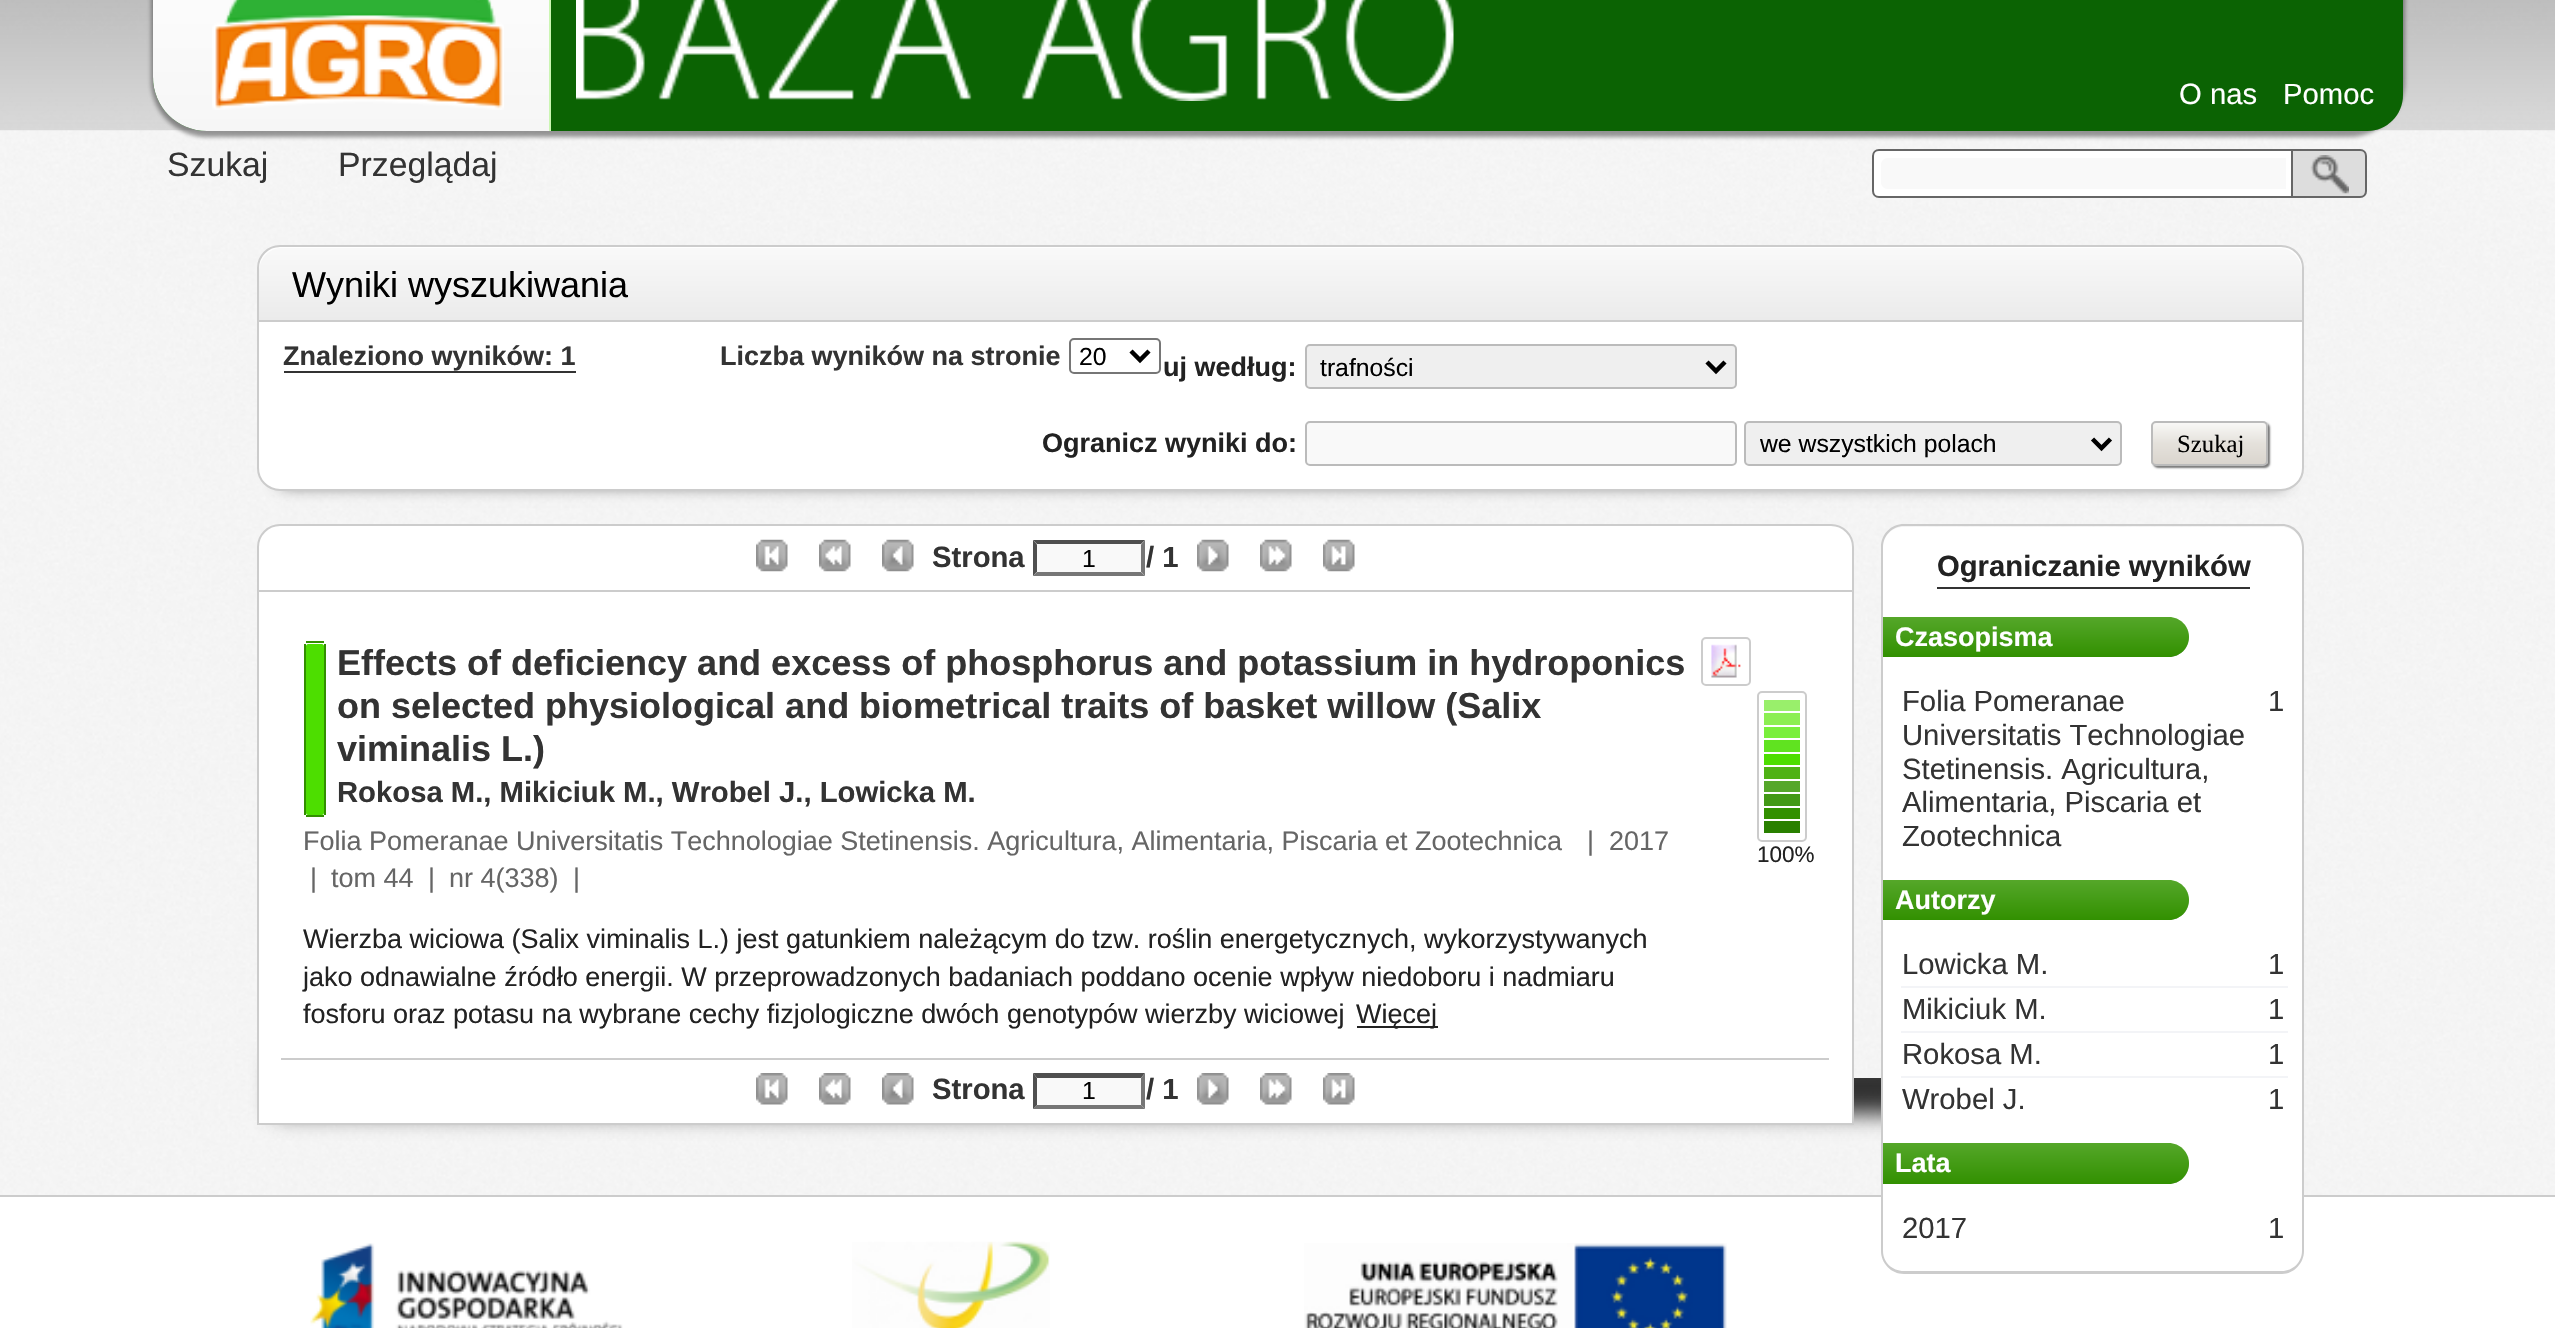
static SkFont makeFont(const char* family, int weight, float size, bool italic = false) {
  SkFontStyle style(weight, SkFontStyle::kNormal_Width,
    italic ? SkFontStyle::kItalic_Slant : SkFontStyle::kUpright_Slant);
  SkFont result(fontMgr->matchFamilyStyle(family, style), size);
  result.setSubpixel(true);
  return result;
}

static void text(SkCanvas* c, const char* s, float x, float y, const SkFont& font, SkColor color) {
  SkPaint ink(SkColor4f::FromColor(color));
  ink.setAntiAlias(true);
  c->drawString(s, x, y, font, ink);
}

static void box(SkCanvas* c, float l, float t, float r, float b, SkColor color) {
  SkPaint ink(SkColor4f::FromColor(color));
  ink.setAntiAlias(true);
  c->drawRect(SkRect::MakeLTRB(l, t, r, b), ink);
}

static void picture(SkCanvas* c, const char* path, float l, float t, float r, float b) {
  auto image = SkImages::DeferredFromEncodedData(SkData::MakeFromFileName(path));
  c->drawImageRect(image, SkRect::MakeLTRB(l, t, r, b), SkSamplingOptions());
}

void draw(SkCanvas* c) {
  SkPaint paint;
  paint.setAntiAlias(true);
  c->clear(0xffffffff);
  picture(c, "img_01.png", 0, 0, 2555, 1195);
  picture(c, "img_04.png", 0, 130, 2555, 200);
  paint.setColor(0x80323232);
  paint.setMaskFilter(SkMaskFilter::MakeBlur(kNormal_SkBlurStyle, 2));
  c->drawRoundRect(SkRect::MakeLTRB(151, -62, 2405, 137), 56, 56, paint);
  paint.setMaskFilter(nullptr);
  c->save();
  c->clipPath(SkPathBuilder().moveTo(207, -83).lineTo(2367, -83).cubicTo(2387, -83, 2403, -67, 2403, -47).lineTo(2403, 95).cubicTo(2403, 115, 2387, 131, 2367, 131).lineTo(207, 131).cubicTo(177, 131, 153, 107, 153, 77).lineTo(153, -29).cubicTo(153, -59, 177, -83, 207, -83).close().detach(), true);
  paint.setMaskFilter(SkMaskFilter::MakeBlur(kNormal_SkBlurStyle, 2));
  c->drawRoundRect(SkRect::MakeLTRB(151, -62, 2405, 137), 56, 56, paint);
  paint.setMaskFilter(nullptr);
  c->restore();
  paint.setColor(0xff0b6303);
  c->drawPath(SkPathBuilder().moveTo(207, -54).lineTo(2367, -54).cubicTo(2387, -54, 2403, -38, 2403, -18).lineTo(2403, 95).cubicTo(2403, 115, 2387, 131, 2367, 131).lineTo(207, 131).cubicTo(177, 131, 153, 107, 153, 77).lineTo(153, 0).cubicTo(153, -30, 177, -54, 207, -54).close().detach(), paint);
  {
    const SkColor colors[] = {0xffffffff, 0xfff6f6f6};
    const float stops[] = {0, 1};
    const SkPoint ends[] = {{351, -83}, {351, 131}};
    paint.setShader(SkGradientShader::MakeLinear(ends, colors, stops, 2, SkTileMode::kClamp));
    paint.setAlpha(255);
  }
  c->drawPath(SkPathBuilder().moveTo(207, -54).lineTo(497, -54).cubicTo(527, -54, 551, -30, 551, 0).lineTo(551, 131).lineTo(207, 131).cubicTo(177, 131, 153, 107, 153, 77).lineTo(153, 0).cubicTo(153, -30, 177, -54, 207, -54).close().detach(), paint);
  box(c, 549, 0, 551, 131, 0xffcbf6b3);
  picture(c, "img_02.png", 212, 0, 504, 110);
  picture(c, "img_03.png", 576, 0, 1454, 101);
  SkFont face1 = makeFont("Liberation Sans", 400, 29.25f);
  text(c, "O nas", 2179, 104, face1, 0xffffffff);
  text(c, "Pomoc", 2283, 104, face1, 0xffffffff);
  SkFont face2 = makeFont("Liberation Sans", 400, 33.75f);
  text(c, "Szukaj", 167, 176, face2, 0xff333333);
  text(c, "Przeglądaj", 338, 176, face2, 0xff333333);
  paint.setShader(nullptr);
  paint.setColor(0xffffffff);
  c->drawPath(SkPathBuilder().moveTo(1879, 150).lineTo(2294, 150).lineTo(2294, 197).lineTo(1879, 197).cubicTo(1875.5f, 197, 1873, 194.5f, 1873, 191).lineTo(1873, 156).cubicTo(1873, 152.5f, 1875.5f, 150, 1879, 150).close().detach(), paint);
  paint.setStyle(SkPaint::kStroke_Style);
  paint.setStrokeWidth(2);
  paint.setColor(0xff666666);
  c->drawPath(SkPathBuilder().moveTo(1879, 150).lineTo(2294, 150).lineTo(2294, 197).lineTo(1879, 197).cubicTo(1875.5f, 197, 1873, 194.5f, 1873, 191).lineTo(1873, 156).cubicTo(1873, 152.5f, 1875.5f, 150, 1879, 150).close().detach(), paint);
  paint.setStyle(SkPaint::kFill_Style);
  paint.setColor(0xfff9f9f9);
  c->drawPath(SkPathBuilder().moveTo(1888, 158).lineTo(2286, 158).lineTo(2286, 189).lineTo(1888, 189).cubicTo(1884, 189, 1881, 186, 1881, 182).lineTo(1881, 165).cubicTo(1881, 161, 1884, 158, 1888, 158).close().detach(), paint);
  paint.setColor(0xffdddddd);
  c->drawPath(SkPathBuilder().moveTo(2291, 149).lineTo(2360, 149).cubicTo(2364, 149, 2367, 152, 2367, 156).lineTo(2367, 191).cubicTo(2367, 195, 2364, 198, 2360, 198).lineTo(2291, 198).close().detach(), paint);
  picture(c, "img_05.png", 2310, 155, 2349, 194);
  paint.setStyle(SkPaint::kStroke_Style);
  paint.setColor(0xff666666);
  c->drawPath(SkPathBuilder().moveTo(2292, 150).lineTo(2360, 150).cubicTo(2363.5f, 150, 2366, 152.5f, 2366, 156).lineTo(2366, 191).cubicTo(2366, 194.5f, 2363.5f, 197, 2360, 197).lineTo(2292, 197).close().detach(), paint);
  paint.setStyle(SkPaint::kFill_Style);
  paint.setColor(0xcc000000);
  paint.setMaskFilter(SkMaskFilter::MakeBlur(kNormal_SkBlurStyle, 8));
  c->drawRect(SkRect::MakeLTRB(281, 428, 2284, 484), paint);
  paint.setMaskFilter(nullptr);
  paint.setColor(0xffffffff);
  c->drawRoundRect(SkRect::MakeLTRB(258, 246, 2303, 490), 22, 22, paint);
  paint.setStyle(SkPaint::kStroke_Style);
  paint.setColor(0xffcccccc);
  c->drawRoundRect(SkRect::MakeLTRB(258, 246, 2303, 490), 22, 22, paint);
  box(c, 259, 320, 2302, 322, 0xffcccccc);
  paint.setStyle(SkPaint::kFill_Style);
  {
    const SkColor colors[] = {0xfff9f9f9, 0xffebebeb};
    const float stops[] = {0, 1};
    const SkPoint ends[] = {{1280, 247}, {1280, 320}};
    paint.setShader(SkGradientShader::MakeLinear(ends, colors, stops, 2, SkTileMode::kClamp));
    paint.setAlpha(255);
  }
  c->drawPath(SkPathBuilder().moveTo(282, 248).lineTo(2279, 248).cubicTo(2291.5f, 248, 2302, 258.5f, 2302, 271).lineTo(2302, 320).lineTo(259, 320).lineTo(259, 271).cubicTo(259, 258.5f, 269.5f, 248, 282, 248).close().detach(), paint);
  SkFont face3 = makeFont("Liberation Sans", 400, 36);
  text(c, "Wyniki wyszukiwania", 292, 297, face3, 0xff000000);
  SkFont face4 = makeFont("Liberation Sans", 700, 27);
  text(c, "uj według:", 1163, 376, face4, 0xff222222);
  paint.setShader(nullptr);
  paint.setColor(0xffefefef);
  c->drawRoundRect(SkRect::MakeLTRB(1306, 345, 1736, 388), 4, 4, paint);
  paint.setStyle(SkPaint::kStroke_Style);
  paint.setColor(0xffbbbbbb);
  c->drawRoundRect(SkRect::MakeLTRB(1306, 345, 1736, 388), 4, 4, paint);
  paint.setStrokeWidth(4.5f);
  paint.setColor(0xff000000);
  c->drawPath(SkPathBuilder().moveTo(1707, 362).lineTo(1716, 371).lineTo(1725, 362).detach(), paint);
  SkFont face5 = makeFont("Liberation Sans", 400, 24.75f);
  text(c, "trafności", 1320, 376, face5, 0xff000000);
  text(c, "Ogranicz wyniki do:", 1042, 452, face4, 0xff222222);
  paint.setStyle(SkPaint::kFill_Style);
  paint.setColor(0xfff9f9f9);
  c->drawRoundRect(SkRect::MakeLTRB(1306, 422, 1736, 465), 4, 4, paint);
  paint.setStyle(SkPaint::kStroke_Style);
  paint.setStrokeWidth(2);
  paint.setColor(0xffbbbbbb);
  c->drawRoundRect(SkRect::MakeLTRB(1306, 422, 1736, 465), 4, 4, paint);
  paint.setStyle(SkPaint::kFill_Style);
  paint.setColor(0xffefefef);
  c->drawRoundRect(SkRect::MakeLTRB(1745, 422, 2121, 465), 4, 4, paint);
  paint.setStyle(SkPaint::kStroke_Style);
  paint.setColor(0xffbbbbbb);
  c->drawRoundRect(SkRect::MakeLTRB(1745, 422, 2121, 465), 4, 4, paint);
  paint.setStrokeWidth(4.5f);
  paint.setColor(0xff000000);
  c->drawPath(SkPathBuilder().moveTo(2092.5f, 439).lineTo(2101.5f, 448).lineTo(2110.5f, 439).detach(), paint);
  text(c, "we wszystkich polach", 1760, 452, face5, 0xff000000);
  paint.setStyle(SkPaint::kFill_Style);
  paint.setColor(0xff7a7a7a);
  paint.setMaskFilter(SkMaskFilter::MakeBlur(kNormal_SkBlurStyle, 1));
  c->drawRoundRect(SkRect::MakeLTRB(2153, 423, 2270, 468), 5, 5, paint);
  paint.setMaskFilter(nullptr);
  c->save();
  c->clipPath(SkPathBuilder().moveTo(2156, 421).lineTo(2263, 421).cubicTo(2266, 421, 2268, 423, 2268, 426).lineTo(2268, 461).cubicTo(2268, 464, 2266, 466, 2263, 466).lineTo(2156, 466).cubicTo(2153, 466, 2151, 464, 2151, 461).lineTo(2151, 426).cubicTo(2151, 423, 2153, 421, 2156, 421).close().detach(), true);
  {
    const SkColor colors[] = {0xfff9f8f6, 0xffe4e1db, 0xffdad5ce};
    const float stops[] = {0, 0.5f, 1};
    const SkPoint ends[] = {{2210, 423}, {2210, 464}};
    paint.setShader(SkGradientShader::MakeLinear(ends, colors, stops, 3, SkTileMode::kClamp));
    paint.setAlpha(255);
  }
  c->drawRect(SkRect::MakeLTRB(2151, 423, 2268, 464), paint);
  c->restore();
  paint.setStyle(SkPaint::kStroke_Style);
  paint.setStrokeWidth(2);
  paint.setShader(nullptr);
  paint.setColor(0xffbbbbbb);
  c->drawRoundRect(SkRect::MakeLTRB(2152, 422, 2267, 465), 4, 4, paint);
  SkFont face6 = makeFont("Liberation Serif", 400, 24.75f);
  text(c, "Szukaj", 2177, 452, face6, 0xff000000);
  box(c, 284, 371, 576, 373, 0xff333333);
  text(c, "Znaleziono wyników: 1", 283, 365, face4, 0xff333333);
  text(c, "Liczba wyników na stronie", 720, 365, face4, 0xff333333);
  paint.setColor(0xff767676);
  c->drawRoundRect(SkRect::MakeLTRB(1070, 339, 1160, 373), 4, 4, paint);
  paint.setStrokeWidth(4.5f);
  paint.setColor(0xff000000);
  c->drawPath(SkPathBuilder().moveTo(1131, 351).lineTo(1140, 360).lineTo(1149, 351).detach(), paint);
  text(c, "20", 1079, 365, face5, 0xff000000);
  c->save();
  c->clipPath(SkPathBuilder(SkPathFillType::kEvenOdd).moveTo(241, 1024).lineTo(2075, 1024).lineTo(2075, 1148).lineTo(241, 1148).close().moveTo(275, 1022).lineTo(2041, 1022).lineTo(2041, 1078).lineTo(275, 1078).close().detach(), true);
  paint.setStyle(SkPaint::kFill_Style);
  paint.setColor(0xcc000000);
  paint.setMaskFilter(SkMaskFilter::MakeBlur(kNormal_SkBlurStyle, 11));
  c->drawRect(SkRect::MakeLTRB(275, 1058, 2041, 1114), paint);
  paint.setMaskFilter(nullptr);
  c->restore();
  paint.setColor(0xffffffff);
  c->drawPath(SkPathBuilder().moveTo(280, 525).lineTo(1831, 525).cubicTo(1843, 525, 1853, 535, 1853, 547).lineTo(1853, 1061).lineTo(258, 1061).lineTo(258, 547).cubicTo(258, 535, 268, 525, 280, 525).close().detach(), paint);
  paint.setStyle(SkPaint::kStroke_Style);
  paint.setStrokeWidth(2);
  paint.setColor(0xffcccccc);
  c->drawPath(SkPathBuilder().moveTo(280, 525).lineTo(1831, 525).cubicTo(1843, 525, 1853, 535, 1853, 547).lineTo(1853, 1061).lineTo(258, 1061).lineTo(258, 547).cubicTo(258, 535, 268, 525, 280, 525).close().detach(), paint);
  box(c, 259, 590, 1852, 592, 0xffcccccc);
  picture(c, "img_06.png", 756, 539, 788, 572);
  picture(c, "img_07.png", 819, 539, 851, 572);
  picture(c, "img_08.png", 882, 539, 914, 572);
  SkFont face7 = makeFont("Liberation Sans", 700, 29.25f);
  text(c, "Strona", 932, 567, face7, 0xff333333);
  box(c, 1033, 540, 1145, 576, 0xfff9f9f9);
  paint.setStyle(SkPaint::kFill_Style);
  paint.setColor(0xff4f4f4f);
  c->drawPath(SkPathBuilder().moveTo(1033, 540).lineTo(1145, 540).lineTo(1141, 544).lineTo(1037, 544).close().detach(), paint);
  paint.setColor(0xff767676);
  c->drawPath(SkPathBuilder().moveTo(1145, 540).lineTo(1145, 576).lineTo(1141, 571.5f).lineTo(1141, 544.5f).close().detach(), paint);
  c->drawPath(SkPathBuilder().moveTo(1145, 576).lineTo(1033, 576).lineTo(1037, 572).lineTo(1141, 572).close().detach(), paint);
  paint.setColor(0xff4f4f4f);
  c->drawPath(SkPathBuilder().moveTo(1033, 576).lineTo(1033, 540).lineTo(1037, 544.5f).lineTo(1037, 571.5f).close().detach(), paint);
  text(c, "1", 1082, 567, face5, 0xff000000);
  text(c, "/ 1", 1146, 567, face7, 0xff333333);
  picture(c, "img_09.png", 1197, 539, 1229, 572);
  picture(c, "img_10.png", 1260, 539, 1292, 572);
  picture(c, "img_11.png", 1323, 539, 1355, 572);
  box(c, 281, 1058, 1829, 1060, 0xffcccccc);
  paint.setColor(0xff4dde00);
  c->drawPath(SkPathBuilder().moveTo(308, 644).lineTo(322, 644).cubicTo(323, 644, 324, 645, 324, 646).lineTo(324, 774).lineTo(306, 774).lineTo(306, 646).cubicTo(306, 645, 307, 644, 308, 644).close().detach(), paint);
  box(c, 306, 641, 324, 643, 0xff329000);
  box(c, 324, 644, 326, 815, 0xff329000);
  box(c, 304, 644, 306, 815, 0xff329000);
  SkFont face8 = makeFont("Liberation Sans", 700, 36);
  text(c, "Effects of deficiency and excess of phosphorus and potassium in hydroponics", 337, 675, face8, 0xff333333);
  paint.setStyle(SkPaint::kStroke_Style);
  paint.setColor(0xffcccccc);
  c->drawRoundRect(SkRect::MakeLTRB(1702, 638, 1750, 685), 4, 4, paint);
  picture(c, "img_12.png", 1711, 644, 1741, 678);
  text(c, "on selected physiological and biometrical traits of basket willow (Salix", 337, 718, face8, 0xff333333);
  text(c, "viminalis L.)", 337, 761, face8, 0xff333333);
  c->drawRoundRect(SkRect::MakeLTRB(1758, 692, 1806, 841), 4, 4, paint);
  box(c, 1764, 700, 1800, 711, 0xff99ef6b);
  box(c, 1764, 713, 1800, 725, 0xff8cef52);
  box(c, 1764, 727, 1800, 738, 0xff7aef3c);
  box(c, 1764, 740, 1800, 752, 0xff60e320);
  box(c, 1764, 754, 1800, 765, 0xff4dde00);
  box(c, 1764, 767, 1800, 779, 0xff4fb215);
  box(c, 1764, 781, 1800, 792, 0xff55a72a);
  box(c, 1764, 794, 1800, 806, 0xff429915);
  box(c, 1764, 808, 1800, 819, 0xff329000);
  box(c, 1764, 821, 1800, 833, 0xff298000);
  SkFont face9 = makeFont("Liberation Sans", 400, 22.5f);
  text(c, "100%", 1757, 862, face9, 0xff222222);
  paint.setStyle(SkPaint::kFill_Style);
  paint.setColor(0xff4dde00);
  c->drawPath(SkPathBuilder().moveTo(306, 772).lineTo(324, 772).lineTo(324, 813).cubicTo(324, 814, 323, 815, 322, 815).lineTo(308, 815).cubicTo(307, 815, 306, 814, 306, 813).close().detach(), paint);
  box(c, 306, 815, 324, 817, 0xff329000);
  text(c, "Rokosa M., Mikiciuk M., Wrobel J., Lowicka M.", 337, 802, face7, 0xff333333);
  SkFont face10 = makeFont("Liberation Sans", 400, 27);
  text(c, "Folia Pomeranae Universitatis Technologiae Stetinensis. Agricultura, Alimentaria, Piscaria et Zootechnica", 303, 850, face10, 0xff666666);
  text(c, "|", 1587, 850, face10, 0xff666666);
  text(c, "2017", 1609, 850, face10, 0xff666666);
  text(c, "|", 310, 887, face10, 0xff666666);
  text(c, "tom 44", 331, 887, face10, 0xff666666);
  text(c, "|", 428, 887, face10, 0xff666666);
  text(c, "nr 4(338)", 449, 887, face10, 0xff666666);
  text(c, "|", 573, 887, face10, 0xff666666);
  text(c, "Wierzba wiciowa (Salix viminalis L.) jest gatunkiem należącym do tzw. roślin energetycznych, wykorzystywanych", 303, 948, face10, 0xff222222);
  text(c, "jako odnawialne źródło energii. W przeprowadzonych badaniach poddano ocenie wpływ niedoboru i nadmiaru", 303, 986, face10, 0xff222222);
  text(c, "fosforu oraz potasu na wybrane cechy fizjologiczne dwóch genotypów wierzby wiciowej", 303, 1023, face10, 0xff222222);
  box(c, 1357, 1026, 1438, 1028, 0xff222222);
  text(c, "Więcej", 1356, 1023, face10, 0xff222222);
  paint.setColor(0xffffffff);
  c->drawPath(SkPathBuilder().moveTo(1903, 527).lineTo(2282, 527).cubicTo(2293, 527, 2302, 536, 2302, 547).lineTo(2302, 617).lineTo(1883, 617).lineTo(1883, 547).cubicTo(1883, 536, 1892, 527, 1903, 527).close().detach(), paint);
  paint.setColor(0xffcccccc);
  c->drawPath(SkPathBuilder(SkPathFillType::kEvenOdd).moveTo(1904, 524).lineTo(2282, 524).cubicTo(2294, 524, 2304, 534, 2304, 547).lineTo(2304, 616).lineTo(1881, 616).lineTo(1881, 547).cubicTo(1881, 534, 1891, 524, 1904, 524).close().moveTo(1904, 526).lineTo(2282, 526).cubicTo(2293, 526, 2302, 536, 2302, 547).lineTo(2302, 616).lineTo(1883, 616).lineTo(1883, 547).cubicTo(1883, 536, 1892, 526, 1904, 526).close().detach(), paint);
  text(c, "Ograniczanie wyników", 1937, 576, face7, 0xff222222);
  box(c, 1937, 587, 2250, 589, 0xff333333);
  box(c, 0, 1195, 2555, 1197, 0xffcccccc);
  paint.setColor(0xffffffff);
  c->drawPath(SkPathBuilder().moveTo(1881, 617).lineTo(2304, 617).lineTo(2304, 1251).cubicTo(2304, 1263.5f, 2293.5f, 1274, 2281, 1274).lineTo(1904, 1274).cubicTo(1891.5f, 1274, 1881, 1263.5f, 1881, 1251).close().detach(), paint);
  paint.setColor(0xffcccccc);
  c->drawPath(SkPathBuilder(SkPathFillType::kEvenOdd).moveTo(1881, 616).lineTo(2304, 616).lineTo(2304, 1251).cubicTo(2304, 1263, 2294, 1274, 2282, 1274).lineTo(1904, 1274).cubicTo(1891, 1274, 1881, 1263, 1881, 1251).close().moveTo(1883, 616).lineTo(2302, 616).lineTo(2302, 1251).cubicTo(2302, 1262, 2293, 1271, 2282, 1271).lineTo(1904, 1271).cubicTo(1892, 1271, 1883, 1262, 1883, 1251).close().detach(), paint);
  c->save();
  c->clipPath(SkPathBuilder().moveTo(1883, 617).lineTo(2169, 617).cubicTo(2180, 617, 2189, 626, 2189, 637).cubicTo(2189, 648, 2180, 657, 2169, 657).lineTo(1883, 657).close().detach(), true);
  paint.setColor(0x59000000);
  paint.setMaskFilter(SkMaskFilter::MakeBlur(kNormal_SkBlurStyle, 1));
  c->drawRoundRect(SkRect::MakeLTRB(1883, 619, 2189, 659), 20, 20, paint);
  paint.setMaskFilter(nullptr);
  c->restore();
  {
    const SkColor colors[] = {0xff55a72a, 0xff329000};
    const float stops[] = {0, 1};
    const SkPoint ends[] = {{2036, 617}, {2036, 657}};
    paint.setShader(SkGradientShader::MakeLinear(ends, colors, stops, 2, SkTileMode::kClamp));
    paint.setAlpha(255);
  }
  c->drawPath(SkPathBuilder().moveTo(1883, 617).lineTo(2169, 617).cubicTo(2180, 617, 2189, 626, 2189, 637).cubicTo(2189, 648, 2180, 657, 2169, 657).lineTo(1883, 657).close().detach(), paint);
  text(c, "Czasopisma", 1895, 646, face4, 0xffffffff);
  text(c, "Folia Pomeranae", 1902, 711, face1, 0xff333333);
  text(c, "1", 2268, 711, face1, 0xff333333);
  text(c, "Universitatis Technologiae", 1902, 745, face1, 0xff333333);
  text(c, "Stetinensis. Agricultura,", 1902, 779, face1, 0xff333333);
  text(c, "Alimentaria, Piscaria et", 1902, 812, face1, 0xff333333);
  text(c, "Zootechnica", 1902, 846, face1, 0xff333333);
  c->save();
  c->clipPath(SkPathBuilder().moveTo(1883, 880).lineTo(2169, 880).cubicTo(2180, 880, 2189, 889, 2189, 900).cubicTo(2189, 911, 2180, 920, 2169, 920).lineTo(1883, 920).close().detach(), true);
  paint.setShader(nullptr);
  paint.setColor(0x59000000);
  paint.setMaskFilter(SkMaskFilter::MakeBlur(kNormal_SkBlurStyle, 1));
  c->drawRoundRect(SkRect::MakeLTRB(1883, 882, 2189, 923), 20.5f, 20.5f, paint);
  paint.setMaskFilter(nullptr);
  c->restore();
  {
    const SkColor colors[] = {0xff55a72a, 0xff329000};
    const float stops[] = {0, 1};
    const SkPoint ends[] = {{2036, 880}, {2036, 920}};
    paint.setShader(SkGradientShader::MakeLinear(ends, colors, stops, 2, SkTileMode::kClamp));
    paint.setAlpha(255);
  }
  c->drawPath(SkPathBuilder().moveTo(1883, 880).lineTo(2169, 880).cubicTo(2180, 880, 2189, 889, 2189, 900).cubicTo(2189, 911, 2180, 920, 2169, 920).lineTo(1883, 920).close().detach(), paint);
  text(c, "Autorzy", 1895, 909, face4, 0xffffffff);
  text(c, "Lowicka M.", 1902, 974, face1, 0xff333333);
  text(c, "1", 2268, 974, face1, 0xff333333);
  box(c, 1901, 986, 2288, 988, 0xfff3f4f7);
  text(c, "Mikiciuk M.", 1902, 1019, face1, 0xff333333);
  text(c, "1", 2268, 1019, face1, 0xff333333);
  box(c, 1901, 1031, 2288, 1033, 0xfff3f4f7);
  text(c, "Rokosa M.", 1902, 1064, face1, 0xff333333);
  text(c, "1", 2268, 1064, face1, 0xff333333);
  box(c, 1901, 1076, 2288, 1078, 0xfff3f4f7);
  text(c, "Wrobel J.", 1902, 1109, face1, 0xff333333);
  text(c, "1", 2268, 1109, face1, 0xff333333);
  c->save();
  c->clipPath(SkPathBuilder().moveTo(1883, 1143).lineTo(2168.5f, 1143).cubicTo(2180, 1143, 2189, 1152, 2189, 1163.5f).cubicTo(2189, 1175, 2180, 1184, 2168.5f, 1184).lineTo(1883, 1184).close().detach(), true);
  paint.setShader(nullptr);
  paint.setColor(0x59000000);
  paint.setMaskFilter(SkMaskFilter::MakeBlur(kNormal_SkBlurStyle, 1));
  c->drawRoundRect(SkRect::MakeLTRB(1883, 1145, 2189, 1186), 20.5f, 20.5f, paint);
  paint.setMaskFilter(nullptr);
  c->restore();
  {
    const SkColor colors[] = {0xff55a72a, 0xff329000};
    const float stops[] = {0, 1};
    const SkPoint ends[] = {{2036, 1143}, {2036, 1184}};
    paint.setShader(SkGradientShader::MakeLinear(ends, colors, stops, 2, SkTileMode::kClamp));
    paint.setAlpha(255);
  }
  c->drawPath(SkPathBuilder().moveTo(1883, 1143).lineTo(2168.5f, 1143).cubicTo(2180, 1143, 2189, 1152, 2189, 1163.5f).cubicTo(2189, 1175, 2180, 1184, 2168.5f, 1184).lineTo(1883, 1184).close().detach(), paint);
  text(c, "Lata", 1895, 1172, face4, 0xffffffff);
  text(c, "2017", 1902, 1238, face1, 0xff333333);
  text(c, "1", 2268, 1238, face1, 0xff333333);
  box(c, 259, 1060, 1852, 1123, 0xffffffff);
  box(c, 1852, 1060, 1854, 1125, 0xffcccccc);
  box(c, 257, 1123, 1854, 1125, 0xffcccccc);
  box(c, 257, 1060, 259, 1125, 0xffcccccc);
  picture(c, "img_13.png", 756, 1073, 788, 1105);
  picture(c, "img_14.png", 819, 1073, 851, 1105);
  picture(c, "img_15.png", 882, 1073, 914, 1105);
  text(c, "Strona", 932, 1099, face7, 0xff333333);
  box(c, 1033, 1073, 1145, 1109, 0xfff9f9f9);
  paint.setShader(nullptr);
  paint.setColor(0xff4f4f4f);
  c->drawPath(SkPathBuilder().moveTo(1033, 1073).lineTo(1145, 1073).lineTo(1141, 1078).lineTo(1037, 1078).close().detach(), paint);
  paint.setColor(0xff767676);
  c->drawPath(SkPathBuilder().moveTo(1145, 1073).lineTo(1145, 1109).lineTo(1141, 1105).lineTo(1141, 1078).close().detach(), paint);
  c->drawPath(SkPathBuilder().moveTo(1145, 1109).lineTo(1033, 1109).lineTo(1037, 1105).lineTo(1141, 1105).close().detach(), paint);
  paint.setColor(0xff4f4f4f);
  c->drawPath(SkPathBuilder().moveTo(1033, 1109).lineTo(1033, 1073).lineTo(1037, 1078).lineTo(1037, 1105).close().detach(), paint);
  text(c, "1", 1082, 1099, face5, 0xff000000);
  text(c, "/ 1", 1146, 1099, face7, 0xff333333);
  picture(c, "img_16.png", 1197, 1073, 1229, 1105);
  picture(c, "img_17.png", 1260, 1073, 1292, 1105);
  picture(c, "img_18.png", 1323, 1073, 1355, 1105);
  picture(c, "img_19.png", 310, 1243, 623, 1328);
  picture(c, "img_20.png", 852, 1241, 1050, 1328);
  picture(c, "img_21.png", 1304, 1243, 1727, 1328);
}
